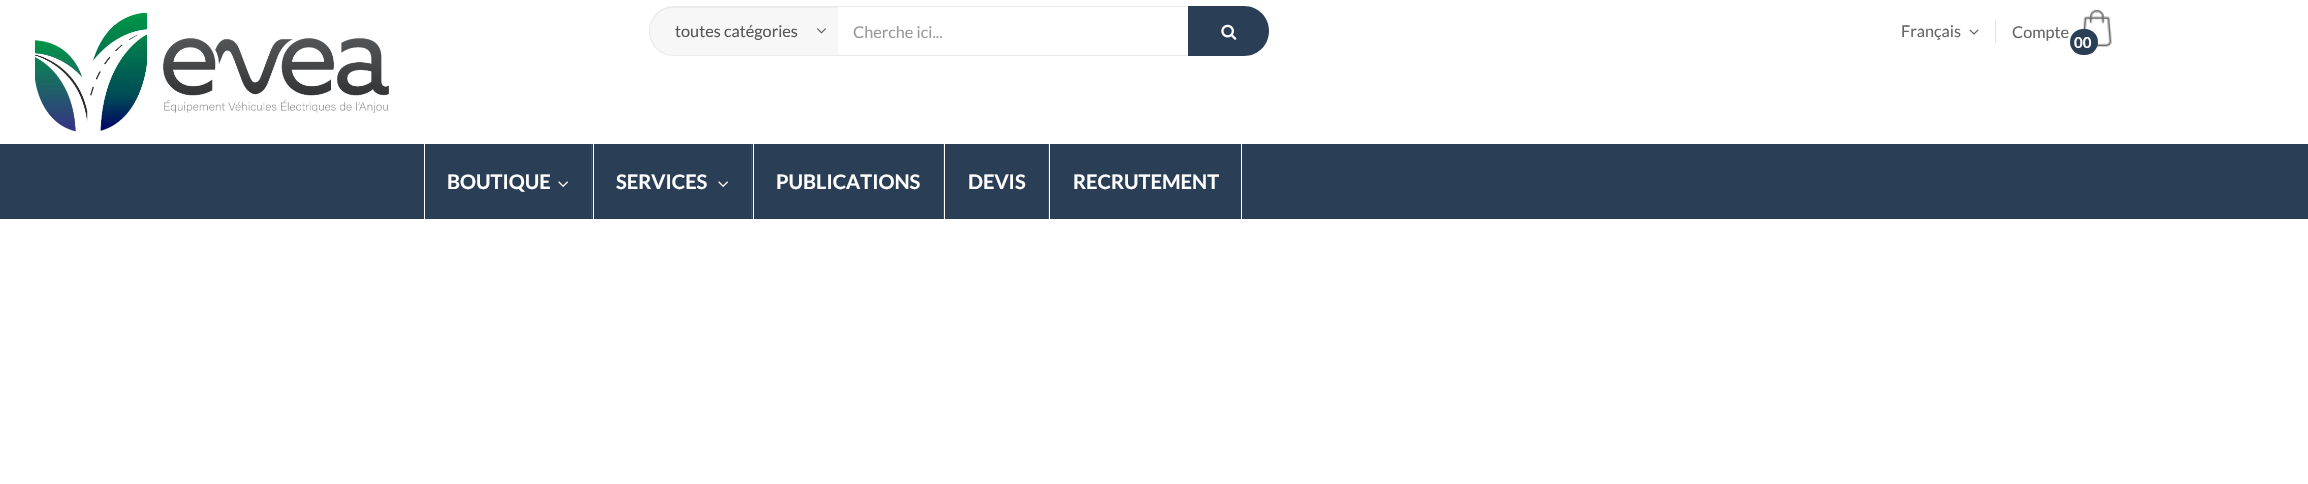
static SkFont makeFont(const char* family, int weight, float size, bool italic = false) {
  SkFontStyle style(weight, SkFontStyle::kNormal_Width,
    italic ? SkFontStyle::kItalic_Slant : SkFontStyle::kUpright_Slant);
  SkFont result(fontMgr->matchFamilyStyle(family, style), size);
  result.setSubpixel(true);
  return result;
}

static void text(SkCanvas* c, const char* s, float x, float y, const SkFont& font, SkColor color) {
  SkPaint ink(SkColor4f::FromColor(color));
  ink.setAntiAlias(true);
  c->drawString(s, x, y, font, ink);
}

static void box(SkCanvas* c, float l, float t, float r, float b, SkColor color) {
  SkPaint ink(SkColor4f::FromColor(color));
  ink.setAntiAlias(true);
  c->drawRect(SkRect::MakeLTRB(l, t, r, b), ink);
}

static void roundBox(SkCanvas* c, float l, float t, float r, float b, float radius, SkColor color) {
  SkPaint ink(SkColor4f::FromColor(color));
  ink.setAntiAlias(true);
  c->drawRoundRect(SkRect::MakeLTRB(l, t, r, b), radius, radius, ink);
}

static void picture(SkCanvas* c, const char* path, float l, float t, float r, float b) {
  auto image = SkImages::DeferredFromEncodedData(SkData::MakeFromFileName(path));
  c->drawImageRect(image, SkRect::MakeLTRB(l, t, r, b), SkSamplingOptions());
}

void draw(SkCanvas* c) {
  SkPaint paint;
  paint.setAntiAlias(true);
  c->clear(0xffffffff);
  picture(c, "img_01.png", 35, 13, 389, 132);
  paint.setColor(0xfff7f7f7);
  c->drawPath(SkPathBuilder().moveTo(673.5f, 8).lineTo(838, 8).lineTo(838, 55).lineTo(673.5f, 55).cubicTo(660.5f, 55, 650, 44.5f, 650, 31.5f).cubicTo(650, 18.5f, 660.5f, 8, 673.5f, 8).close().detach(), paint);
  paint.setColor(0xffebebeb);
  c->drawPath(SkPathBuilder(SkPathFillType::kEvenOdd).moveTo(674, 6).lineTo(838, 6).lineTo(838, 56).lineTo(674, 56).cubicTo(660, 56, 649, 45, 649, 31).cubicTo(649, 17, 660, 6, 674, 6).close().moveTo(674, 8).lineTo(838, 8).lineTo(838, 55).lineTo(674, 55).cubicTo(661, 55, 650, 44, 650, 31).cubicTo(650, 18, 661, 8, 674, 8).close().detach(), paint);
  SkFont face1 = makeFont("Lato", 400, 16.25f);
  text(c, "toutes catégories", 675, 37, face1, 0xff555555);
  picture(c, "img_02.png", 817, 28, 826, 34);
  box(c, 838, 6, 1188, 7, 0xffebebeb);
  box(c, 838, 55, 1188, 56, 0xffebebeb);
  text(c, "Cherche ici...", 853, 38, face1, 0xff999999);
  paint.setColor(0xff2a3e55);
  c->drawPath(SkPathBuilder().moveTo(1188, 6).lineTo(1244, 6).cubicTo(1258, 6, 1269, 17, 1269, 31).cubicTo(1269, 45, 1258, 56, 1244, 56).lineTo(1188, 56).close().detach(), paint);
  picture(c, "img_03.png", 1221, 24, 1237, 40);
  box(c, 1995, 20, 1996, 43, 0xffe5e5e5);
  text(c, "Français", 1901, 37, face1, 0xff666666);
  picture(c, "img_04.png", 1969, 29, 1979, 35);
  text(c, "Compte", 2012, 38, face1, 0xff666666);
  picture(c, "img_05.png", 2082, 9, 2112, 47);
  roundBox(c, 2070, 29, 2098, 55, 13, 0xff2a3e55);
  SkFont face2 = makeFont("Lato", 700, 15);
  text(c, "00", 2074, 48, face2, 0xffffffff);
  box(c, 0, 144, 2308, 219, 0xff2a3e55);
  box(c, 591, 144, 592, 219, 0xff3f5166);
  box(c, 424, 144, 425, 219, 0xffffffff);
  SkFont face3 = makeFont("Lato", 700, 20);
  text(c, "BOUTIQUE", 447, 189, face3, 0xffffffff);
  picture(c, "img_06.png", 558, 181, 568, 187);
  box(c, 751, 144, 752, 219, 0xff3f5166);
  box(c, 593, 144, 594, 219, 0xffffffff);
  text(c, "SERVICES", 616, 189, face3, 0xffffffff);
  picture(c, "img_06.png", 718, 181, 728, 187);
  box(c, 943, 144, 944, 219, 0xff3f5166);
  box(c, 753, 144, 754, 219, 0xffffffff);
  text(c, "PUBLICATIONS", 776, 189, face3, 0xffffffff);
  box(c, 1048, 144, 1049, 219, 0xff3f5166);
  box(c, 944, 144, 945, 219, 0xffffffff);
  text(c, "DEVIS", 968, 189, face3, 0xffffffff);
  box(c, 1241, 144, 1242, 219, 0xffffffff);
  box(c, 1049, 144, 1050, 219, 0xffffffff);
  text(c, "RECRUTEMENT", 1073, 189, face3, 0xffffffff);
}
